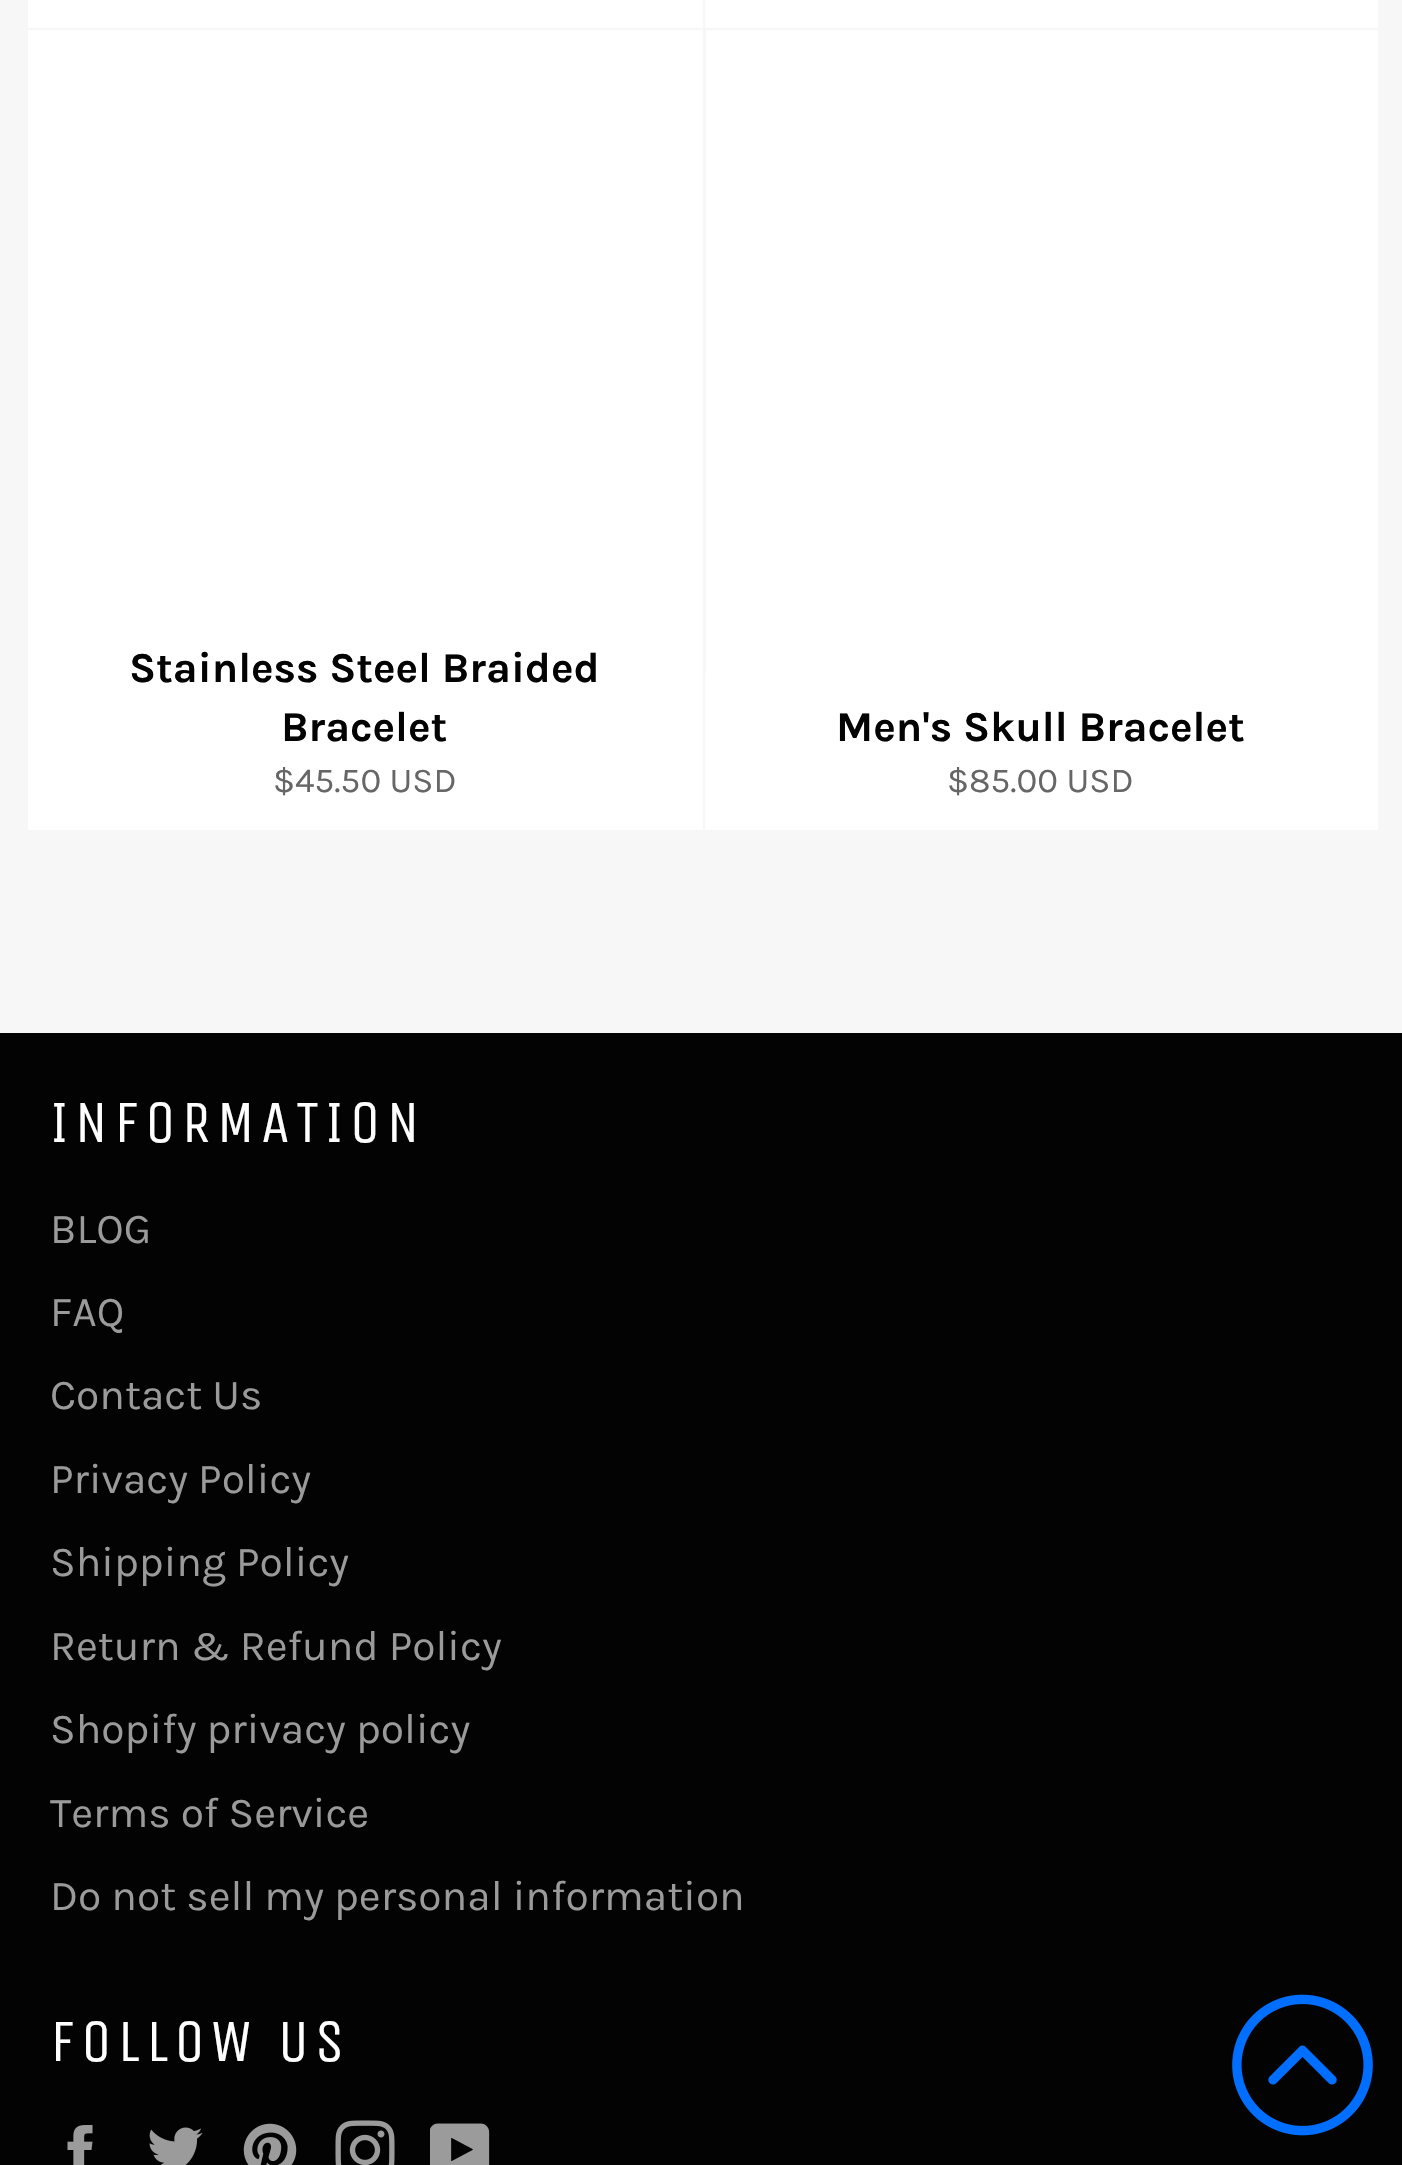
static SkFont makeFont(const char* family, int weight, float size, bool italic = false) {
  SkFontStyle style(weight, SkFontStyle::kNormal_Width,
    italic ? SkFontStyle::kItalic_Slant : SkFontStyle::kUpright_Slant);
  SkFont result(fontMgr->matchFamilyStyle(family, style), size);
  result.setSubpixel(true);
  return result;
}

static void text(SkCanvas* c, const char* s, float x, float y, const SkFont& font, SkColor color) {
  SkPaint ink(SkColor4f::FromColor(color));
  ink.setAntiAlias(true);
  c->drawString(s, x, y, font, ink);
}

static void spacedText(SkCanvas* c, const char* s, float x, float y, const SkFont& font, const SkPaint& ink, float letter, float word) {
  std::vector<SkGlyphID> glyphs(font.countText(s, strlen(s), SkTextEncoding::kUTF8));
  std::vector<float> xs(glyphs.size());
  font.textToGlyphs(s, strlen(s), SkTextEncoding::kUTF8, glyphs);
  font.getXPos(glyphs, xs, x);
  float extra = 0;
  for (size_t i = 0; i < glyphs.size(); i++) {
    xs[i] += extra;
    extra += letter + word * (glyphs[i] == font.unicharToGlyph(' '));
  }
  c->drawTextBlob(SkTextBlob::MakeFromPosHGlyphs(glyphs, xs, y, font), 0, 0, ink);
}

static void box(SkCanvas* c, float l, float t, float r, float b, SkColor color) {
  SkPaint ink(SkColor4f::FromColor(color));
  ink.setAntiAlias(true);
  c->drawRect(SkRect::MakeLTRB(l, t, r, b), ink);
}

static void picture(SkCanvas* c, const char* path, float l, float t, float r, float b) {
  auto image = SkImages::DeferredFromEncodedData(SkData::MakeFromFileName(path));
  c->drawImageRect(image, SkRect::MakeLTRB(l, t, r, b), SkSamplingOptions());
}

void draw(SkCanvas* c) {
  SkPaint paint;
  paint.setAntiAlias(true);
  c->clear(0xfff7f7f7);
  box(c, 28, 0, 703, 28, 0xffffffff);
  box(c, 705, 0, 1378, 28, 0xffffffff);
  box(c, 28, 30, 703, 830, 0xffffffff);
  SkFont face1 = makeFont("Karla", 700, 42.5f);
  text(c, "Stainless Steel Braided", 129, 682, face1, 0xff030303);
  text(c, "Bracelet", 281, 741, face1, 0xff030303);
  SkFont face2 = makeFont("Karla", 400, 35);
  text(c, "$45.50 USD", 273, 792, face2, 0xff666666);
  box(c, 706, 30, 1378, 673, 0xffffffff);
  box(c, 705, 673, 1378, 830, 0xffffffff);
  text(c, "Men's Skull Bracelet", 836, 741, face1, 0xff030303);
  text(c, "$85.00 USD", 947, 792, face2, 0xff666666);
  box(c, 0, 1033, 1402, 2165, 0xff030303);
  SkFont face3 = makeFont("Unica One", 400, 60);
  paint.setColor(0xffffffff);
  spacedText(c, "INFORMATION", 50, 1142, face3, paint, 6, 0);
  SkFont face4 = makeFont("Karla", 400, 42.5f);
  text(c, "BLOG", 50, 1243, face4, 0xff9a9a9a);
  text(c, "FAQ", 50, 1326, face4, 0xff9a9a9a);
  text(c, "Contact Us", 50, 1409, face4, 0xff9a9a9a);
  text(c, "Privacy Policy", 50, 1493, face4, 0xff9a9a9a);
  text(c, "Shipping Policy", 50, 1576, face4, 0xff9a9a9a);
  text(c, "Return & Refund Policy", 50, 1660, face4, 0xff9a9a9a);
  text(c, "Shopify privacy policy", 50, 1743, face4, 0xff9a9a9a);
  text(c, "Terms of Service", 50, 1827, face4, 0xff9a9a9a);
  text(c, "Do not sell my personal information", 50, 1910, face4, 0xff9a9a9a);
  spacedText(c, "FOLLOW US", 50, 2061, face3, paint, 6, 0);
  picture(c, "img_01.png", 67, 2125, 93, 2165);
  picture(c, "img_02.png", 149, 2127, 203, 2165);
  picture(c, "img_03.png", 243, 2123, 297, 2165);
  picture(c, "img_04.png", 335, 2120, 395, 2165);
  picture(c, "img_05.png", 430, 2123, 490, 2165);
  picture(c, "img_06.png", 1232, 1994, 1373, 2136);
}
